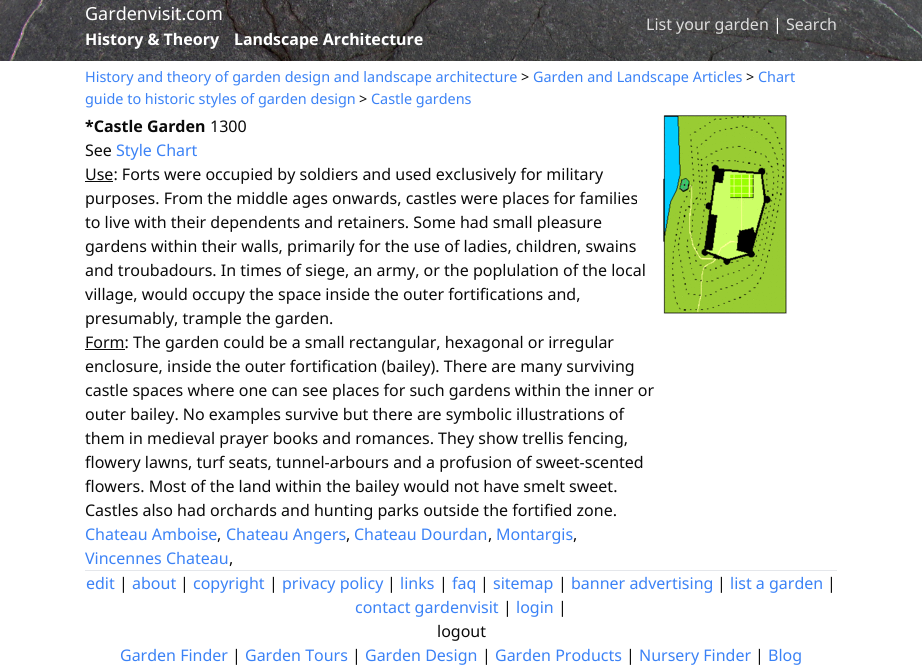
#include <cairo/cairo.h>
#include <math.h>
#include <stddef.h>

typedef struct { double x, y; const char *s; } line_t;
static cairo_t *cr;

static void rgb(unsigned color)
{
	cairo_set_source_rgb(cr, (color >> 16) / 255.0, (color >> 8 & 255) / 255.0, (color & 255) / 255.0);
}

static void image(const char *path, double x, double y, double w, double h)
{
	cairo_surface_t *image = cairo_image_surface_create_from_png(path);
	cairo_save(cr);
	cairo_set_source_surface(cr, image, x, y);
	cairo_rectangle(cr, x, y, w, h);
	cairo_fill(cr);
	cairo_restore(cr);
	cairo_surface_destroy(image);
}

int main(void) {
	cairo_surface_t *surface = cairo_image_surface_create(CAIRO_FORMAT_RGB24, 922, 666);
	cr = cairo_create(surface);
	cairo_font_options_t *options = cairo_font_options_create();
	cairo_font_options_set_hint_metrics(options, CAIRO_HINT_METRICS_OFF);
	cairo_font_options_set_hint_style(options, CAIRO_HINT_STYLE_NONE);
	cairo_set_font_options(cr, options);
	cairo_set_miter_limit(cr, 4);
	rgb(0xffffff);
	cairo_paint(cr);
	image("img/1.png", 0, 0, 922, 61);
	rgb(0x0a0a0a);
	cairo_rectangle(cr, 85, 181, 28, 1);
	cairo_fill(cr);
	cairo_rectangle(cr, 85, 349, 40, 1);
	cairo_fill(cr);
	image("img/2.png", 663, 115, 124, 199);
	rgb(0xe5e7eb);
	cairo_rectangle(cr, 85, 570, 752, 1);
	cairo_fill(cr);
	cairo_select_font_face(cr, "Noto Sans", CAIRO_FONT_SLANT_NORMAL, CAIRO_FONT_WEIGHT_NORMAL);
	cairo_set_font_size(cr, 18);
	rgb(0xffffff);
	cairo_move_to(cr, 85, 20);
	cairo_show_text(cr, "Gardenvisit.com");
	cairo_set_font_size(cr, 16);
	rgb(0xdddddd);
	cairo_move_to(cr, 646, 30);
	cairo_show_text(cr, "List your garden");
	rgb(0xffffff);
	cairo_move_to(cr, 773, 30);
	cairo_show_text(cr, "|");
	rgb(0xdddddd);
	cairo_move_to(cr, 786, 30);
	cairo_show_text(cr, "Search");
	cairo_select_font_face(cr, "Noto Sans", CAIRO_FONT_SLANT_NORMAL, CAIRO_FONT_WEIGHT_BOLD);
	rgb(0xffffff);
	cairo_move_to(cr, 85, 45);
	cairo_show_text(cr, "History & Theory");
	cairo_move_to(cr, 234, 45);
	cairo_show_text(cr, "Landscape Architecture");
	cairo_select_font_face(cr, "Noto Sans", CAIRO_FONT_SLANT_NORMAL, CAIRO_FONT_WEIGHT_NORMAL);
	cairo_set_font_size(cr, 14.4);
	rgb(0x3b82f6);
	cairo_move_to(cr, 85, 82);
	cairo_show_text(cr, "History and theory of garden design and landscape architecture");
	rgb(0x0a0a0a);
	cairo_move_to(cr, 521, 82);
	cairo_show_text(cr, ">");
	rgb(0x3b82f6);
	cairo_move_to(cr, 533, 82);
	cairo_show_text(cr, "Garden and Landscape Articles");
	rgb(0x0a0a0a);
	cairo_move_to(cr, 746, 82);
	cairo_show_text(cr, ">");
	rgb(0x3b82f6);
	cairo_move_to(cr, 758, 82);
	cairo_show_text(cr, "Chart");
	cairo_move_to(cr, 85, 104);
	cairo_show_text(cr, "guide to historic styles of garden design");
	rgb(0x0a0a0a);
	cairo_move_to(cr, 359, 104);
	cairo_show_text(cr, ">");
	rgb(0x3b82f6);
	cairo_move_to(cr, 371, 104);
	cairo_show_text(cr, "Castle gardens");
	cairo_select_font_face(cr, "Noto Sans", CAIRO_FONT_SLANT_NORMAL, CAIRO_FONT_WEIGHT_BOLD);
	cairo_set_font_size(cr, 16);
	rgb(0x0a0a0a);
	cairo_move_to(cr, 85, 132);
	cairo_show_text(cr, "*Castle Garden");
	cairo_select_font_face(cr, "Noto Sans", CAIRO_FONT_SLANT_NORMAL, CAIRO_FONT_WEIGHT_NORMAL);
	cairo_move_to(cr, 210, 132);
	cairo_show_text(cr, "1300");
	cairo_move_to(cr, 85, 156);
	cairo_show_text(cr, "See");
	rgb(0x3b82f6);
	cairo_move_to(cr, 116, 156);
	cairo_show_text(cr, "Style Chart");
	rgb(0x0a0a0a);
	{
		static const line_t items[] = {
			{85, 180, "Use: Forts were occupied by soldiers and used exclusively for military"},
			{85, 204, "purposes. From the middle ages onwards, castles were places for families"},
			{85, 228, "to live with their dependents and retainers. Some had small pleasure"},
			{85, 252, "gardens within their walls, primarily for the use of ladies, children, swains"},
			{85, 276, "and troubadours. In times of siege, an army, or the poplulation of the local"},
			{85, 300, "village, would occupy the space inside the outer fortifications and,"},
			{85, 324, "presumably, trample the garden."},
			{85, 348, "Form: The garden could be a small rectangular, hexagonal or irregular"},
			{85, 372, "enclosure, inside the outer fortification (bailey). There are many surviving"},
			{85, 396, "castle spaces where one can see places for such gardens within the inner or"},
			{85, 420, "outer bailey. No examples survive but there are symbolic illustrations of"},
			{85, 444, "them in medieval prayer books and romances. They show trellis fencing,"},
			{85, 468, "flowery lawns, turf seats, tunnel-arbours and a profusion of sweet-scented"},
			{85, 492, "flowers. Most of the land within the bailey would not have smelt sweet."},
			{85, 516, "Castles also had orchards and hunting parks outside the fortified zone."},
		};
		for (size_t i = 0; i < sizeof items / sizeof *items; i++) {
			cairo_move_to(cr, items[i].x, items[i].y);
			cairo_show_text(cr, items[i].s);
		}
	}
	rgb(0x3b82f6);
	cairo_move_to(cr, 85, 540);
	cairo_show_text(cr, "Chateau Amboise");
	rgb(0x0a0a0a);
	cairo_move_to(cr, 217, 540);
	cairo_show_text(cr, ",");
	rgb(0x3b82f6);
	cairo_move_to(cr, 226, 540);
	cairo_show_text(cr, "Chateau Angers");
	rgb(0x0a0a0a);
	cairo_move_to(cr, 346, 540);
	cairo_show_text(cr, ",");
	rgb(0x3b82f6);
	cairo_move_to(cr, 354, 540);
	cairo_show_text(cr, "Chateau Dourdan");
	rgb(0x0a0a0a);
	cairo_move_to(cr, 488, 540);
	cairo_show_text(cr, ",");
	rgb(0x3b82f6);
	cairo_move_to(cr, 496, 540);
	cairo_show_text(cr, "Montargis");
	rgb(0x0a0a0a);
	cairo_move_to(cr, 573, 540);
	cairo_show_text(cr, ",");
	rgb(0x3b82f6);
	cairo_move_to(cr, 85, 564);
	cairo_show_text(cr, "Vincennes Chateau");
	rgb(0x0a0a0a);
	cairo_move_to(cr, 229, 564);
	cairo_show_text(cr, ",");
	rgb(0x3b82f6);
	cairo_move_to(cr, 86, 589);
	cairo_show_text(cr, "edit");
	rgb(0x0a0a0a);
	cairo_move_to(cr, 119, 589);
	cairo_show_text(cr, "|");
	rgb(0x3b82f6);
	cairo_move_to(cr, 132, 589);
	cairo_show_text(cr, "about");
	rgb(0x0a0a0a);
	cairo_move_to(cr, 180, 589);
	cairo_show_text(cr, "|");
	rgb(0x3b82f6);
	cairo_move_to(cr, 193, 589);
	cairo_show_text(cr, "copyright");
	rgb(0x0a0a0a);
	cairo_move_to(cr, 269, 589);
	cairo_show_text(cr, "|");
	rgb(0x3b82f6);
	cairo_move_to(cr, 282, 589);
	cairo_show_text(cr, "privacy policy");
	rgb(0x0a0a0a);
	cairo_move_to(cr, 387, 589);
	cairo_show_text(cr, "|");
	rgb(0x3b82f6);
	cairo_move_to(cr, 400, 589);
	cairo_show_text(cr, "links");
	rgb(0x0a0a0a);
	cairo_move_to(cr, 439, 589);
	cairo_show_text(cr, "|");
	rgb(0x3b82f6);
	cairo_move_to(cr, 452, 589);
	cairo_show_text(cr, "faq");
	rgb(0x0a0a0a);
	cairo_move_to(cr, 480, 589);
	cairo_show_text(cr, "|");
	rgb(0x3b82f6);
	cairo_move_to(cr, 493, 589);
	cairo_show_text(cr, "sitemap");
	rgb(0x0a0a0a);
	cairo_move_to(cr, 558, 589);
	cairo_show_text(cr, "|");
	rgb(0x3b82f6);
	cairo_move_to(cr, 571, 589);
	cairo_show_text(cr, "banner advertising");
	rgb(0x0a0a0a);
	cairo_move_to(cr, 717, 589);
	cairo_show_text(cr, "|");
	rgb(0x3b82f6);
	cairo_move_to(cr, 730, 589);
	cairo_show_text(cr, "list a garden");
	rgb(0x0a0a0a);
	cairo_move_to(cr, 827, 589);
	cairo_show_text(cr, "|");
	rgb(0x3b82f6);
	cairo_move_to(cr, 355, 613);
	cairo_show_text(cr, "contact gardenvisit");
	rgb(0x0a0a0a);
	cairo_move_to(cr, 503, 613);
	cairo_show_text(cr, "|");
	rgb(0x3b82f6);
	cairo_move_to(cr, 516, 613);
	cairo_show_text(cr, "login");
	rgb(0x0a0a0a);
	cairo_move_to(cr, 558, 613);
	cairo_show_text(cr, "|");
	cairo_move_to(cr, 437, 637);
	cairo_show_text(cr, "logout");
	rgb(0x3b82f6);
	cairo_move_to(cr, 120, 661);
	cairo_show_text(cr, "Garden Finder");
	rgb(0x0a0a0a);
	cairo_move_to(cr, 232, 661);
	cairo_show_text(cr, "|");
	rgb(0x3b82f6);
	cairo_move_to(cr, 245, 661);
	cairo_show_text(cr, "Garden Tours");
	rgb(0x0a0a0a);
	cairo_move_to(cr, 352, 661);
	cairo_show_text(cr, "|");
	rgb(0x3b82f6);
	cairo_move_to(cr, 365, 661);
	cairo_show_text(cr, "Garden Design");
	rgb(0x0a0a0a);
	cairo_move_to(cr, 482, 661);
	cairo_show_text(cr, "|");
	rgb(0x3b82f6);
	cairo_move_to(cr, 495, 661);
	cairo_show_text(cr, "Garden Products");
	rgb(0x0a0a0a);
	cairo_move_to(cr, 626, 661);
	cairo_show_text(cr, "|");
	rgb(0x3b82f6);
	cairo_move_to(cr, 639, 661);
	cairo_show_text(cr, "Nursery Finder");
	rgb(0x0a0a0a);
	cairo_move_to(cr, 755, 661);
	cairo_show_text(cr, "|");
	rgb(0x3b82f6);
	cairo_move_to(cr, 768, 661);
	cairo_show_text(cr, "Blog");
	cairo_surface_write_to_png(surface, "page.png");
	cairo_font_options_destroy(options);
	cairo_destroy(cr);
	cairo_surface_destroy(surface);
	return 0;
}
